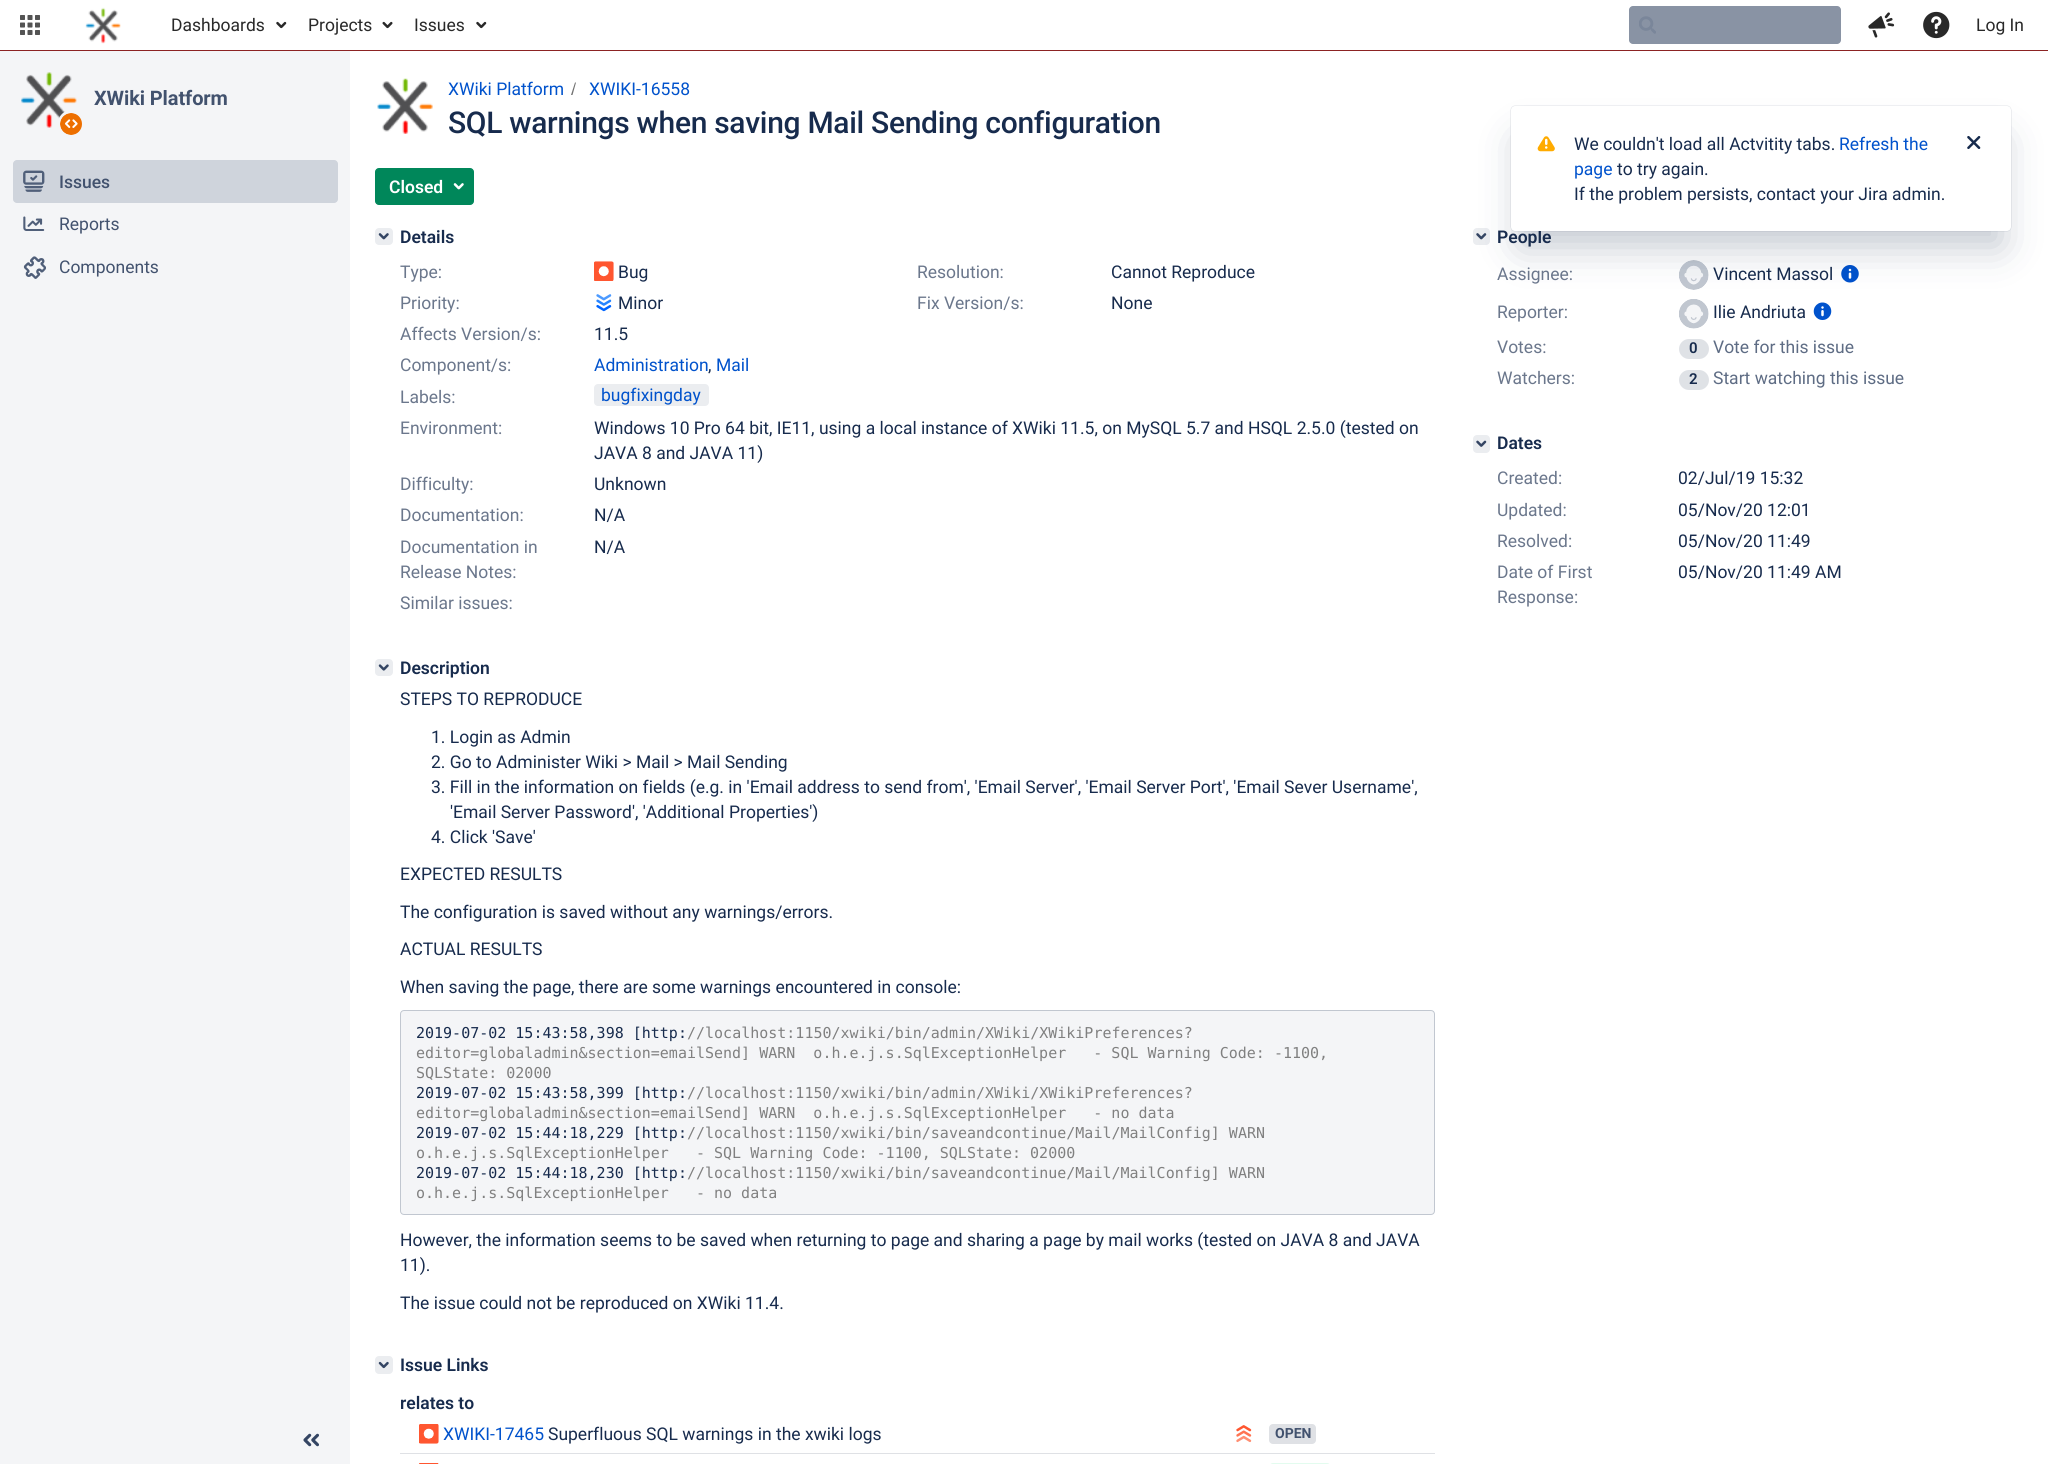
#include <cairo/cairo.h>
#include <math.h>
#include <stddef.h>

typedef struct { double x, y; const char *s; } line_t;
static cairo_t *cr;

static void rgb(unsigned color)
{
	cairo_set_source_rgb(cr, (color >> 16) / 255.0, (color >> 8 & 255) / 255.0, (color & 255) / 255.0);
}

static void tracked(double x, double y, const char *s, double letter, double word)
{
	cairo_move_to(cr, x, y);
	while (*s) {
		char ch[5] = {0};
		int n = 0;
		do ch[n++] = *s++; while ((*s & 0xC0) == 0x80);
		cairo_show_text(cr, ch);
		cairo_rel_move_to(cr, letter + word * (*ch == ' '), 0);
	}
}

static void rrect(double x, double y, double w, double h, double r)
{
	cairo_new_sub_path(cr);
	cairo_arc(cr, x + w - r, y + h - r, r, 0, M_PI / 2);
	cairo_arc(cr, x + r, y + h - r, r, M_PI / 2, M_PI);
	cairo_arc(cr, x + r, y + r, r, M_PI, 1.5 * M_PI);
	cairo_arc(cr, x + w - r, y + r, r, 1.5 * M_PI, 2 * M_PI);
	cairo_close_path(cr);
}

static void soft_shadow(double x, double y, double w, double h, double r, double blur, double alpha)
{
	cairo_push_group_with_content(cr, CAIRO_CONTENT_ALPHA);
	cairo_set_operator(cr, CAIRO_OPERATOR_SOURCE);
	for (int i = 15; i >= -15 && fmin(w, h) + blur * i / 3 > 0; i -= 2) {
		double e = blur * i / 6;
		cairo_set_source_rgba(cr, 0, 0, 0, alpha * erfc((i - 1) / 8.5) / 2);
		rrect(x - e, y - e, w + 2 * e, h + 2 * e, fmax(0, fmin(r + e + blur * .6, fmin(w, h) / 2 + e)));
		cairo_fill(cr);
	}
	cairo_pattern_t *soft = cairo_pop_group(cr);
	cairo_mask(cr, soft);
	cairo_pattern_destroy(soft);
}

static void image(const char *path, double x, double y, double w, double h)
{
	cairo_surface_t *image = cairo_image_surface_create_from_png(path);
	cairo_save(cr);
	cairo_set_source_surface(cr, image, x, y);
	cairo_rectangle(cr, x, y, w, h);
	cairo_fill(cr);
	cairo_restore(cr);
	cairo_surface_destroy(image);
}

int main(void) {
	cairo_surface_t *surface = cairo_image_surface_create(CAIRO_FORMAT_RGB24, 2048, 1464);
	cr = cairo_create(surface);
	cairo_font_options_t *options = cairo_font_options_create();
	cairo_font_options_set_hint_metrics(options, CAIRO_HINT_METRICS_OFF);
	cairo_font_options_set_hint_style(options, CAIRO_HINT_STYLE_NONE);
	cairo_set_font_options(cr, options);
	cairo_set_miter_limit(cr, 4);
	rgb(0xffffff);
	cairo_paint(cr);
	rgb(0x8c2323);
	cairo_rectangle(cr, 0, 50, 2048, 1);
	cairo_fill(cr);
	image("img/1.png", 20, 15, 20, 20);
	image("img/2.png", 85, 7, 36, 37);
	image("img/3.png", 276, 21, 11, 8);
	image("img/4.png", 382, 21, 11, 8);
	image("img/3.png", 476, 21, 11, 8);
	rgb(0x8993a4);
	rrect(1629, 6, 212, 38, 4);
	cairo_fill(cr);
	image("img/5.png", 1639, 16, 17, 18);
	image("img/6.png", 1868, 12, 27, 26);
	image("img/7.png", 1923, 11, 27, 28);
	rgb(0xf4f5f7);
	cairo_rectangle(cr, 0, 51, 350, 1413);
	cairo_fill(cr);
	image("img/8.png", 21, 72, 56, 56);
	rrect(58, 110, 27, 28, 13.5);
	cairo_fill(cr);
	image("img/9.png", 60, 113, 22, 22);
	rgb(0xe1e4e9);
	rrect(13, 160, 325, 43, 4);
	cairo_fill(cr);
	cairo_set_source_rgba(cr, 0.035, 0.118, 0.259, 0.08);
	rrect(13, 160, 325, 43, 4);
	cairo_fill(cr);
	image("img/10.png", 23, 170, 22, 22);
	image("img/11.png", 23, 216, 22, 15);
	image("img/12.png", 23, 256, 23, 23);
	image("img/13.png", 303, 1433, 16, 14);
	image("img/14.png", 377, 78, 56, 56);
	rgb(0x707070);
	cairo_new_path(cr);
	cairo_move_to(cr, 572.5, 95);
	cairo_line_to(cr, 576, 82.5);
	cairo_line_to(cr, 575, 82.5);
	cairo_line_to(cr, 571, 95);
	cairo_close_path(cr);
	cairo_fill(cr);
	rgb(0x00875a);
	rrect(375.5, 168.5, 98, 36, 3.5);
	cairo_fill_preserve(cr);
	cairo_set_line_width(cr, 1);
	cairo_stroke(cr);
	image("img/15.png", 453, 183, 11, 7);
	rgb(0xebedf0);
	rrect(375, 228, 18, 17, 4);
	cairo_fill(cr);
	image("img/16.png", 378, 233, 11, 7);
	image("img/17.png", 594, 261, 20, 20);
	image("img/18.png", 596, 294, 16, 18);
	rrect(594, 384, 115, 22, 4);
	cairo_fill(cr);
	rrect(375, 659, 18, 17, 4);
	cairo_fill(cr);
	image("img/19.png", 378, 664, 11, 7);
	rgb(0xf4f5f7);
	rrect(400.5, 1010.5, 1034, 204, 3.5);
	cairo_fill_preserve(cr);
	rgb(0xc1c7d0);
	cairo_stroke(cr);
	rgb(0xebedf0);
	rrect(375, 1356, 18, 18, 4);
	cairo_fill(cr);
	image("img/20.png", 378, 1361, 11, 8);
	rgb(0xdfe1e5);
	cairo_rectangle(cr, 400, 1453, 1035, 1);
	cairo_fill(cr);
	image("img/21.png", 419, 1424, 20, 20);
	image("img/22.png", 1236, 1425, 16, 18);
	rrect(1269, 1424, 47, 20, 4);
	cairo_fill(cr);
	image("img/23.png", 419, 1463, 20, 1);
	rgb(0xe3fcef);
	cairo_new_path(cr);
	cairo_move_to(cr, 1273, 1463);
	cairo_line_to(cr, 1327, 1463);
	cairo_curve_to(cr, 1329, 1463, 1331, 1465, 1331, 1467);
	cairo_line_to(cr, 1331, 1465);
	cairo_line_to(cr, 1269, 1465);
	cairo_line_to(cr, 1269, 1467);
	cairo_curve_to(cr, 1269, 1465, 1271, 1463, 1273, 1463);
	cairo_close_path(cr);
	cairo_fill(cr);
	rgb(0xebedf0);
	rrect(1473, 228, 17, 17, 4);
	cairo_fill(cr);
	image("img/24.png", 1476, 233, 11, 7);
	image("img/25.png", 1679, 260, 30, 30);
	image("img/26.png", 1841, 265, 18, 18);
	image("img/27.png", 1679, 299, 30, 30);
	image("img/28.png", 1813, 302, 19, 18);
	rgb(0xdfe2e6);
	rrect(1679, 339, 30, 20, 10);
	cairo_fill(cr);
	rrect(1679, 370, 30, 20, 10);
	cairo_fill(cr);
	rgb(0xebedf0);
	rrect(1473, 435, 17, 18, 4);
	cairo_fill(cr);
	image("img/29.png", 1476, 440, 11, 7);
	rgb(0x091e42);
	soft_shadow(1511, 106, 500, 125, 4, 0.5, 0.25);
	soft_shadow(1521, 141, 480, 105, 0, 20, 0.25);
	cairo_select_font_face(cr, "Roboto", CAIRO_FONT_SLANT_NORMAL, CAIRO_FONT_WEIGHT_NORMAL);
	cairo_set_font_size(cr, 17.5);
	rgb(0x292929);
	{
		static const line_t items[] = {
			{171, 31, "Dashboards"},
			{308, 31, "Projects"},
			{414, 31, "Issues"},
			{1976, 31, "Log In"},
		};
		for (size_t i = 0; i < sizeof items / sizeof *items; i++) {
			cairo_move_to(cr, items[i].x, items[i].y);
			cairo_show_text(cr, items[i].s);
		}
	}
	cairo_select_font_face(cr, "Roboto", CAIRO_FONT_SLANT_NORMAL, CAIRO_FONT_WEIGHT_BOLD);
	cairo_set_font_size(cr, 20);
	rgb(0x42526e);
	tracked(94, 105, "XWiki Platform", -0.1, 0);
	cairo_select_font_face(cr, "Roboto Medium", CAIRO_FONT_SLANT_NORMAL, CAIRO_FONT_WEIGHT_NORMAL);
	cairo_set_font_size(cr, 17.5);
	cairo_move_to(cr, 59, 188);
	cairo_show_text(cr, "Issues");
	cairo_select_font_face(cr, "Roboto", CAIRO_FONT_SLANT_NORMAL, CAIRO_FONT_WEIGHT_NORMAL);
	cairo_move_to(cr, 59, 230);
	cairo_show_text(cr, "Reports");
	cairo_move_to(cr, 59, 273);
	cairo_show_text(cr, "Components");
	rgb(0x0052cc);
	cairo_move_to(cr, 448, 95);
	cairo_show_text(cr, "XWiki Platform");
	cairo_move_to(cr, 589, 95);
	cairo_show_text(cr, "XWIKI-16558");
	cairo_select_font_face(cr, "Roboto Medium", CAIRO_FONT_SLANT_NORMAL, CAIRO_FONT_WEIGHT_NORMAL);
	cairo_set_font_size(cr, 30);
	rgb(0x172b4d);
	tracked(448, 133, "SQL warnings when saving Mail Sending configuration", -0.3, 0);
	cairo_select_font_face(cr, "Roboto SemiBold", CAIRO_FONT_SLANT_NORMAL, CAIRO_FONT_WEIGHT_NORMAL);
	cairo_set_font_size(cr, 17.5);
	rgb(0xffffff);
	cairo_move_to(cr, 389, 193);
	cairo_show_text(cr, "Closed");
	rgb(0x172b4d);
	cairo_move_to(cr, 400, 243);
	cairo_show_text(cr, "Details");
	cairo_select_font_face(cr, "Roboto", CAIRO_FONT_SLANT_NORMAL, CAIRO_FONT_WEIGHT_NORMAL);
	rgb(0x6b778c);
	cairo_move_to(cr, 400, 278);
	cairo_show_text(cr, "Type:");
	rgb(0x172b4d);
	cairo_move_to(cr, 618, 278);
	cairo_show_text(cr, "Bug");
	rgb(0x6b778c);
	cairo_move_to(cr, 917, 278);
	cairo_show_text(cr, "Resolution:");
	rgb(0x172b4d);
	cairo_move_to(cr, 1111, 278);
	cairo_show_text(cr, "Cannot Reproduce");
	rgb(0x6b778c);
	cairo_move_to(cr, 400, 309);
	cairo_show_text(cr, "Priority:");
	rgb(0x172b4d);
	cairo_move_to(cr, 618, 309);
	cairo_show_text(cr, "Minor");
	rgb(0x6b778c);
	cairo_move_to(cr, 917, 309);
	cairo_show_text(cr, "Fix Version/s:");
	rgb(0x172b4d);
	cairo_move_to(cr, 1111, 309);
	cairo_show_text(cr, "None");
	rgb(0x6b778c);
	cairo_move_to(cr, 400, 340);
	cairo_show_text(cr, "Affects Version/s:");
	rgb(0x172b4d);
	cairo_move_to(cr, 594, 340);
	cairo_show_text(cr, "11.5");
	rgb(0x6b778c);
	cairo_move_to(cr, 400, 371);
	cairo_show_text(cr, "Component/s:");
	rgb(0x0052cc);
	cairo_move_to(cr, 594, 371);
	cairo_show_text(cr, "Administration");
	rgb(0x172b4d);
	cairo_move_to(cr, 708, 371);
	cairo_show_text(cr, ",");
	rgb(0x0052cc);
	cairo_move_to(cr, 716, 371);
	cairo_show_text(cr, "Mail");
	rgb(0x6b778c);
	cairo_move_to(cr, 400, 403);
	cairo_show_text(cr, "Labels:");
	rgb(0x0052cc);
	cairo_move_to(cr, 601, 401);
	cairo_show_text(cr, "bugfixingday");
	rgb(0x6b778c);
	cairo_move_to(cr, 400, 434);
	cairo_show_text(cr, "Environment:");
	rgb(0x172b4d);
	cairo_move_to(cr, 594, 434);
	cairo_show_text(cr, "Windows 10 Pro 64 bit, IE11, using a local instance of XWiki 11.5, on MySQL 5.7 and HSQL 2.5.0 (tested on");
	cairo_move_to(cr, 594, 459);
	cairo_show_text(cr, "JAVA 8 and JAVA 11)");
	rgb(0x6b778c);
	cairo_move_to(cr, 400, 490);
	cairo_show_text(cr, "Difficulty:");
	rgb(0x172b4d);
	cairo_move_to(cr, 594, 490);
	cairo_show_text(cr, "Unknown");
	rgb(0x6b778c);
	cairo_move_to(cr, 400, 521);
	cairo_show_text(cr, "Documentation:");
	rgb(0x172b4d);
	cairo_move_to(cr, 594, 521);
	cairo_show_text(cr, "N/A");
	rgb(0x6b778c);
	cairo_move_to(cr, 400, 553);
	cairo_show_text(cr, "Documentation in");
	cairo_move_to(cr, 400, 578);
	cairo_show_text(cr, "Release Notes:");
	rgb(0x172b4d);
	cairo_move_to(cr, 594, 553);
	cairo_show_text(cr, "N/A");
	rgb(0x6b778c);
	cairo_move_to(cr, 400, 609);
	cairo_show_text(cr, "Similar issues:");
	cairo_select_font_face(cr, "Roboto SemiBold", CAIRO_FONT_SLANT_NORMAL, CAIRO_FONT_WEIGHT_NORMAL);
	rgb(0x172b4d);
	cairo_move_to(cr, 400, 674);
	cairo_show_text(cr, "Description");
	cairo_select_font_face(cr, "Roboto", CAIRO_FONT_SLANT_NORMAL, CAIRO_FONT_WEIGHT_NORMAL);
	{
		static const line_t items[] = {
			{400, 705, "STEPS TO REPRODUCE"},
			{431, 743, "1. Login as Admin"},
			{431, 768, "2. Go to Administer Wiki > Mail > Mail Sending"},
			{431, 793, "3. Fill in the information on fields (e.g. in 'Email address to send from', 'Email Server', 'Email Server Port', 'Email Sever Username',"},
			{450, 818, "'Email Server Password', 'Additional Properties')"},
			{431, 843, "4. Click 'Save'"},
			{400, 880, "EXPECTED RESULTS"},
			{400, 918, "The configuration is saved without any warnings/errors."},
			{400, 955, "ACTUAL RESULTS"},
			{400, 993, "When saving the page, there are some warnings encountered in console:"},
		};
		for (size_t i = 0; i < sizeof items / sizeof *items; i++) {
			cairo_move_to(cr, items[i].x, items[i].y);
			cairo_show_text(cr, items[i].s);
		}
	}
	cairo_select_font_face(cr, "DejaVu Sans Mono", CAIRO_FONT_SLANT_NORMAL, CAIRO_FONT_WEIGHT_NORMAL);
	cairo_set_font_size(cr, 15);
	cairo_move_to(cr, 416, 1038);
	cairo_show_text(cr, "2019-07-02 15:43:58,398 [http:");
	rgb(0x808080);
	{
		static const line_t items[] = {
			{687, 1038, "//localhost:1150/xwiki/bin/admin/XWiki/XWikiPreferences?"},
			{416, 1058, "editor=globaladmin&section=emailSend] WARN  o.h.e.j.s.SqlExceptionHelper   - SQL Warning Code: -1100,"},
			{416, 1078, "SQLState: 02000"},
		};
		for (size_t i = 0; i < sizeof items / sizeof *items; i++) {
			cairo_move_to(cr, items[i].x, items[i].y);
			cairo_show_text(cr, items[i].s);
		}
	}
	rgb(0x172b4d);
	cairo_move_to(cr, 416, 1098);
	cairo_show_text(cr, "2019-07-02 15:43:58,399 [http:");
	rgb(0x808080);
	cairo_move_to(cr, 687, 1098);
	cairo_show_text(cr, "//localhost:1150/xwiki/bin/admin/XWiki/XWikiPreferences?");
	cairo_move_to(cr, 416, 1118);
	cairo_show_text(cr, "editor=globaladmin&section=emailSend] WARN  o.h.e.j.s.SqlExceptionHelper   - no data");
	rgb(0x172b4d);
	cairo_move_to(cr, 416, 1138);
	cairo_show_text(cr, "2019-07-02 15:44:18,229 [http:");
	rgb(0x808080);
	cairo_move_to(cr, 687, 1138);
	cairo_show_text(cr, "//localhost:1150/xwiki/bin/saveandcontinue/Mail/MailConfig] WARN");
	cairo_move_to(cr, 416, 1158);
	cairo_show_text(cr, "o.h.e.j.s.SqlExceptionHelper   - SQL Warning Code: -1100, SQLState: 02000");
	rgb(0x172b4d);
	cairo_move_to(cr, 416, 1178);
	cairo_show_text(cr, "2019-07-02 15:44:18,230 [http:");
	rgb(0x808080);
	cairo_move_to(cr, 687, 1178);
	cairo_show_text(cr, "//localhost:1150/xwiki/bin/saveandcontinue/Mail/MailConfig] WARN");
	cairo_move_to(cr, 416, 1198);
	cairo_show_text(cr, "o.h.e.j.s.SqlExceptionHelper   - no data");
	cairo_select_font_face(cr, "Roboto", CAIRO_FONT_SLANT_NORMAL, CAIRO_FONT_WEIGHT_NORMAL);
	cairo_set_font_size(cr, 17.5);
	rgb(0x172b4d);
	{
		static const line_t items[] = {
			{400, 1246, "However, the information seems to be saved when returning to page and sharing a page by mail works (tested on JAVA 8 and JAVA"},
			{400, 1271, "11)."},
			{400, 1309, "The issue could not be reproduced on XWiki 11.4."},
		};
		for (size_t i = 0; i < sizeof items / sizeof *items; i++) {
			cairo_move_to(cr, items[i].x, items[i].y);
			cairo_show_text(cr, items[i].s);
		}
	}
	cairo_select_font_face(cr, "Roboto SemiBold", CAIRO_FONT_SLANT_NORMAL, CAIRO_FONT_WEIGHT_NORMAL);
	cairo_move_to(cr, 400, 1371);
	cairo_show_text(cr, "Issue Links");
	cairo_move_to(cr, 400, 1409);
	cairo_show_text(cr, "relates to");
	cairo_select_font_face(cr, "Roboto", CAIRO_FONT_SLANT_NORMAL, CAIRO_FONT_WEIGHT_NORMAL);
	rgb(0x0052cc);
	cairo_move_to(cr, 443, 1440);
	cairo_show_text(cr, "XWIKI-17465");
	rgb(0x172b4d);
	cairo_move_to(cr, 548, 1440);
	cairo_show_text(cr, "Superfluous SQL warnings in the xwiki logs");
	cairo_select_font_face(cr, "Roboto", CAIRO_FONT_SLANT_NORMAL, CAIRO_FONT_WEIGHT_BOLD);
	cairo_set_font_size(cr, 14);
	rgb(0x42526e);
	cairo_move_to(cr, 1275, 1438);
	cairo_show_text(cr, "OPEN");
	cairo_select_font_face(cr, "Roboto SemiBold", CAIRO_FONT_SLANT_NORMAL, CAIRO_FONT_WEIGHT_NORMAL);
	cairo_set_font_size(cr, 17.5);
	rgb(0x172b4d);
	cairo_move_to(cr, 1497, 243);
	cairo_show_text(cr, "People");
	cairo_select_font_face(cr, "Roboto", CAIRO_FONT_SLANT_NORMAL, CAIRO_FONT_WEIGHT_NORMAL);
	rgb(0x6b778c);
	cairo_move_to(cr, 1497, 280);
	cairo_show_text(cr, "Assignee:");
	rgb(0x172b4d);
	cairo_move_to(cr, 1713, 280);
	cairo_show_text(cr, "Vincent Massol");
	rgb(0x6b778c);
	cairo_move_to(cr, 1497, 318);
	cairo_show_text(cr, "Reporter:");
	rgb(0x172b4d);
	cairo_move_to(cr, 1713, 318);
	cairo_show_text(cr, "Ilie Andriuta");
	rgb(0x6b778c);
	cairo_move_to(cr, 1497, 353);
	cairo_show_text(cr, "Votes:");
	cairo_select_font_face(cr, "Roboto SemiBold", CAIRO_FONT_SLANT_NORMAL, CAIRO_FONT_WEIGHT_NORMAL);
	cairo_set_font_size(cr, 15);
	rgb(0x172b4d);
	cairo_move_to(cr, 1689, 353);
	cairo_show_text(cr, "0");
	cairo_select_font_face(cr, "Roboto", CAIRO_FONT_SLANT_NORMAL, CAIRO_FONT_WEIGHT_NORMAL);
	cairo_set_font_size(cr, 17.5);
	rgb(0x5e6c84);
	cairo_move_to(cr, 1713, 353);
	cairo_show_text(cr, "Vote for this issue");
	rgb(0x6b778c);
	cairo_move_to(cr, 1497, 384);
	cairo_show_text(cr, "Watchers:");
	cairo_select_font_face(cr, "Roboto SemiBold", CAIRO_FONT_SLANT_NORMAL, CAIRO_FONT_WEIGHT_NORMAL);
	cairo_set_font_size(cr, 15);
	rgb(0x172b4d);
	cairo_move_to(cr, 1689, 384);
	cairo_show_text(cr, "2");
	cairo_select_font_face(cr, "Roboto", CAIRO_FONT_SLANT_NORMAL, CAIRO_FONT_WEIGHT_NORMAL);
	cairo_set_font_size(cr, 17.5);
	rgb(0x5e6c84);
	cairo_move_to(cr, 1713, 384);
	cairo_show_text(cr, "Start watching this issue");
	cairo_select_font_face(cr, "Roboto SemiBold", CAIRO_FONT_SLANT_NORMAL, CAIRO_FONT_WEIGHT_NORMAL);
	rgb(0x172b4d);
	cairo_move_to(cr, 1497, 449);
	cairo_show_text(cr, "Dates");
	cairo_select_font_face(cr, "Roboto", CAIRO_FONT_SLANT_NORMAL, CAIRO_FONT_WEIGHT_NORMAL);
	rgb(0x6b778c);
	cairo_move_to(cr, 1497, 484);
	cairo_show_text(cr, "Created:");
	rgb(0x172b4d);
	cairo_move_to(cr, 1678, 484);
	cairo_show_text(cr, "02/Jul/19 15:32");
	rgb(0x6b778c);
	cairo_move_to(cr, 1497, 516);
	cairo_show_text(cr, "Updated:");
	rgb(0x172b4d);
	cairo_move_to(cr, 1678, 516);
	cairo_show_text(cr, "05/Nov/20 12:01");
	rgb(0x6b778c);
	cairo_move_to(cr, 1497, 547);
	cairo_show_text(cr, "Resolved:");
	rgb(0x172b4d);
	cairo_move_to(cr, 1678, 547);
	cairo_show_text(cr, "05/Nov/20 11:49");
	rgb(0x6b778c);
	cairo_move_to(cr, 1497, 578);
	cairo_show_text(cr, "Date of First");
	cairo_move_to(cr, 1497, 603);
	cairo_show_text(cr, "Response:");
	rgb(0x172b4d);
	cairo_move_to(cr, 1678, 578);
	cairo_show_text(cr, "05/Nov/20 11:49 AM");
	rgb(0xffffff);
	rrect(1511, 106, 500, 125, 4);
	cairo_fill(cr);
	image("img/30.png", 1537, 136, 18, 16);
	rgb(0x172b4d);
	cairo_move_to(cr, 1574, 150);
	cairo_show_text(cr, "We couldn't load all Actvitity tabs.");
	rgb(0x0052cc);
	cairo_move_to(cr, 1839, 150);
	cairo_show_text(cr, "Refresh the");
	image("img/31.png", 1967, 136, 14, 13);
	cairo_move_to(cr, 1574, 175);
	cairo_show_text(cr, "page");
	rgb(0x172b4d);
	cairo_move_to(cr, 1617, 175);
	cairo_show_text(cr, "to try again.");
	cairo_move_to(cr, 1574, 200);
	cairo_show_text(cr, "If the problem persists, contact your Jira admin.");
	cairo_surface_write_to_png(surface, "page.png");
	cairo_font_options_destroy(options);
	cairo_destroy(cr);
	cairo_surface_destroy(surface);
	return 0;
}
